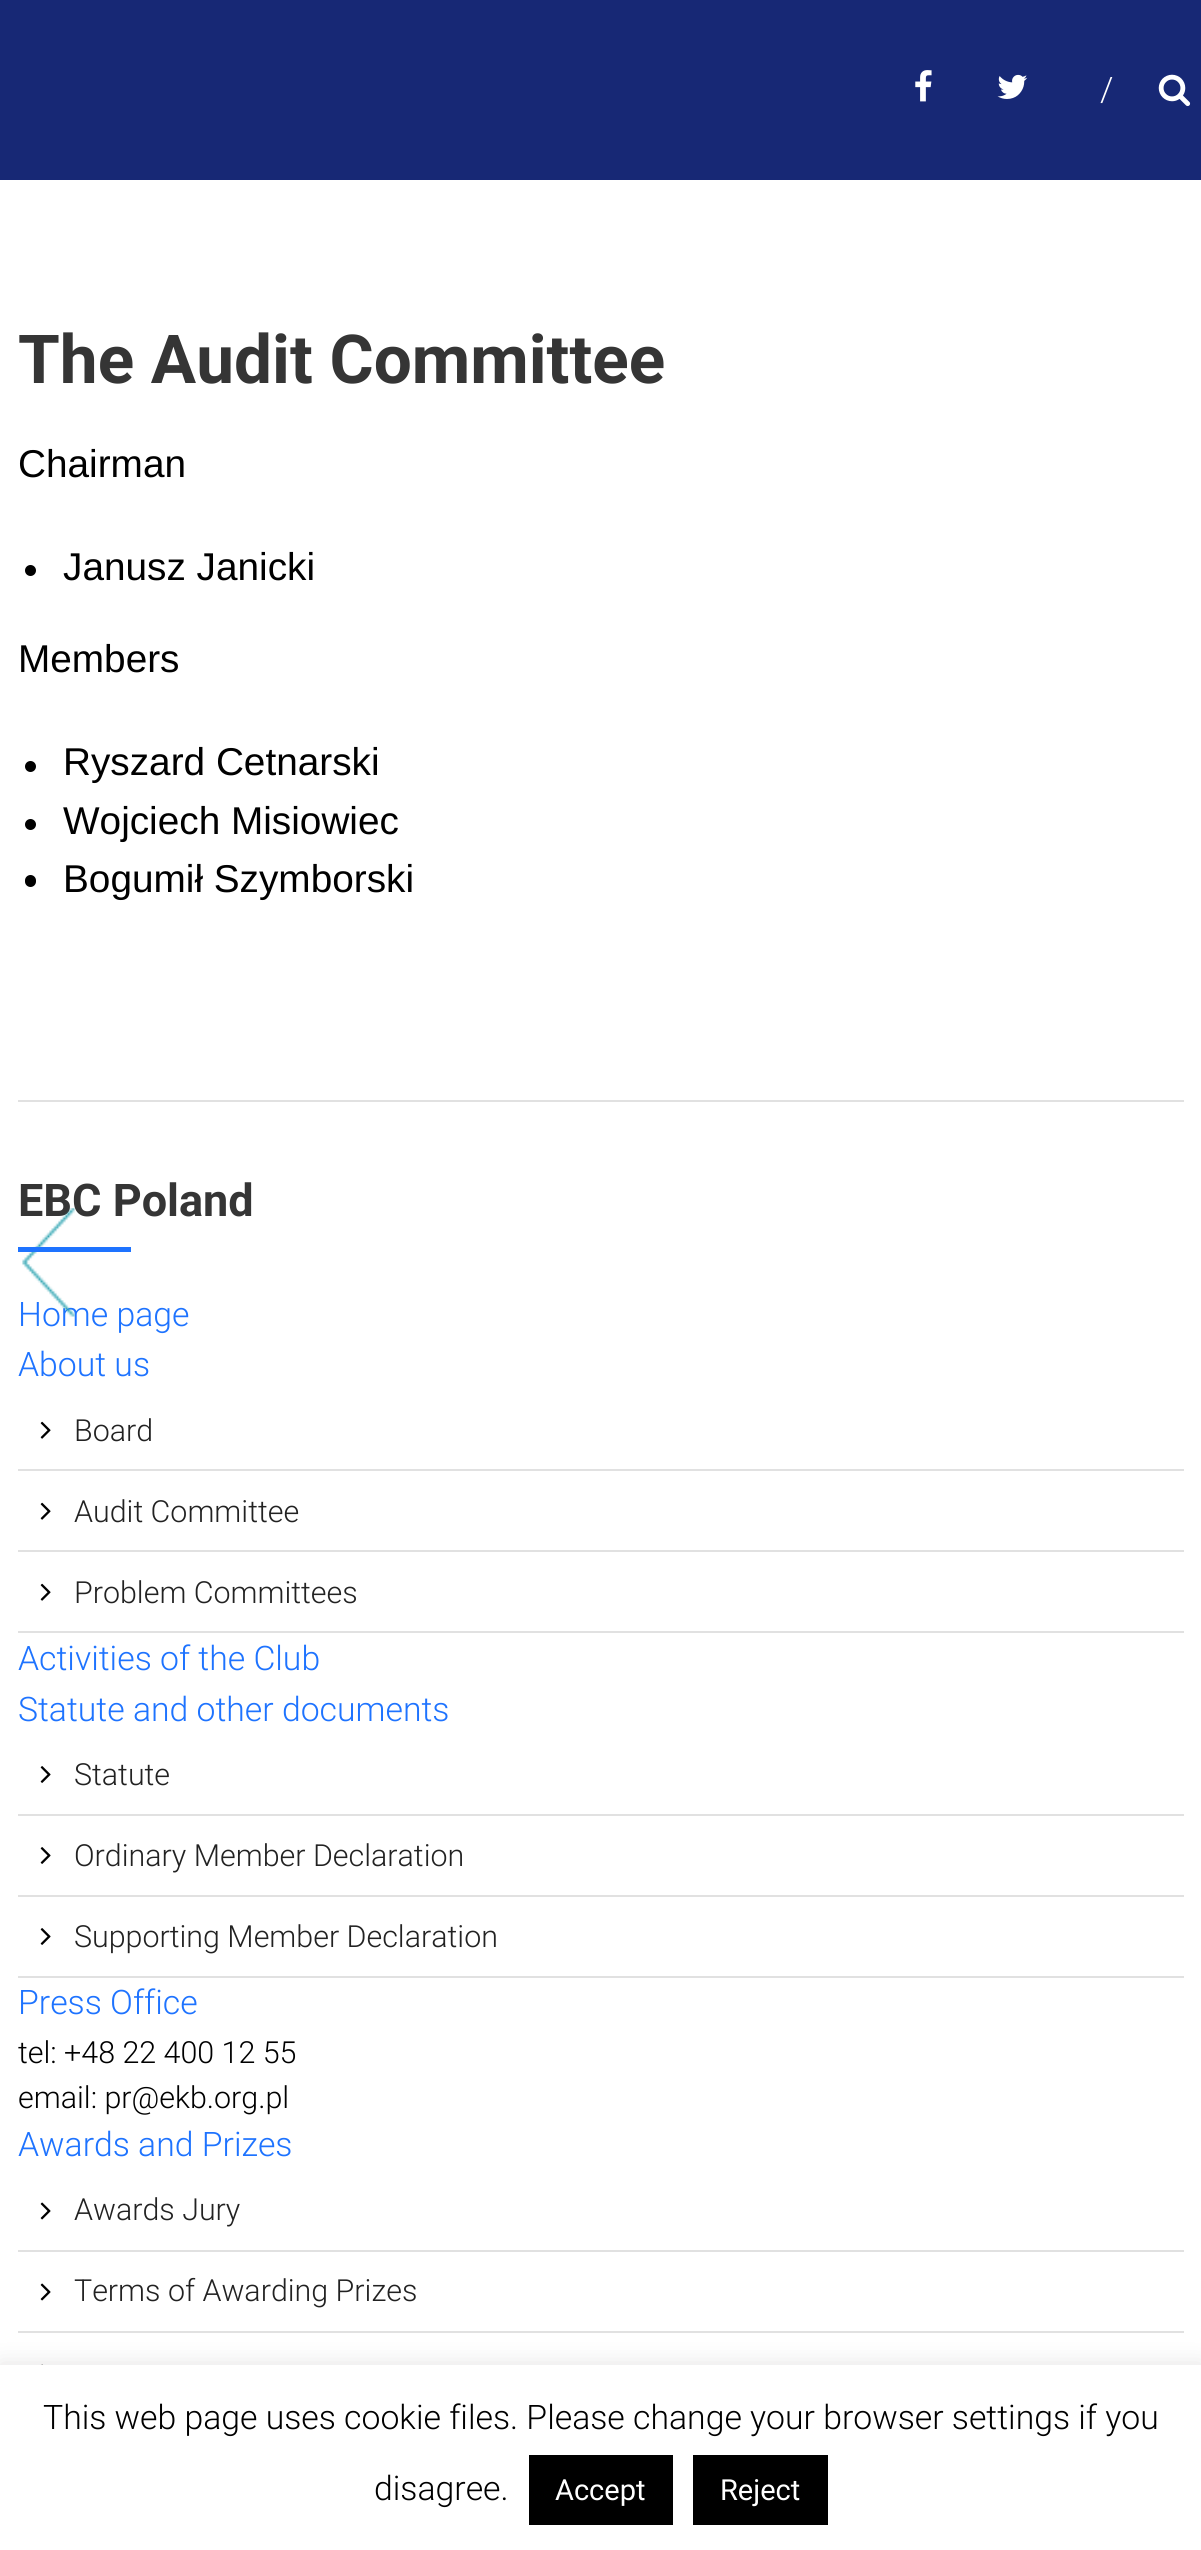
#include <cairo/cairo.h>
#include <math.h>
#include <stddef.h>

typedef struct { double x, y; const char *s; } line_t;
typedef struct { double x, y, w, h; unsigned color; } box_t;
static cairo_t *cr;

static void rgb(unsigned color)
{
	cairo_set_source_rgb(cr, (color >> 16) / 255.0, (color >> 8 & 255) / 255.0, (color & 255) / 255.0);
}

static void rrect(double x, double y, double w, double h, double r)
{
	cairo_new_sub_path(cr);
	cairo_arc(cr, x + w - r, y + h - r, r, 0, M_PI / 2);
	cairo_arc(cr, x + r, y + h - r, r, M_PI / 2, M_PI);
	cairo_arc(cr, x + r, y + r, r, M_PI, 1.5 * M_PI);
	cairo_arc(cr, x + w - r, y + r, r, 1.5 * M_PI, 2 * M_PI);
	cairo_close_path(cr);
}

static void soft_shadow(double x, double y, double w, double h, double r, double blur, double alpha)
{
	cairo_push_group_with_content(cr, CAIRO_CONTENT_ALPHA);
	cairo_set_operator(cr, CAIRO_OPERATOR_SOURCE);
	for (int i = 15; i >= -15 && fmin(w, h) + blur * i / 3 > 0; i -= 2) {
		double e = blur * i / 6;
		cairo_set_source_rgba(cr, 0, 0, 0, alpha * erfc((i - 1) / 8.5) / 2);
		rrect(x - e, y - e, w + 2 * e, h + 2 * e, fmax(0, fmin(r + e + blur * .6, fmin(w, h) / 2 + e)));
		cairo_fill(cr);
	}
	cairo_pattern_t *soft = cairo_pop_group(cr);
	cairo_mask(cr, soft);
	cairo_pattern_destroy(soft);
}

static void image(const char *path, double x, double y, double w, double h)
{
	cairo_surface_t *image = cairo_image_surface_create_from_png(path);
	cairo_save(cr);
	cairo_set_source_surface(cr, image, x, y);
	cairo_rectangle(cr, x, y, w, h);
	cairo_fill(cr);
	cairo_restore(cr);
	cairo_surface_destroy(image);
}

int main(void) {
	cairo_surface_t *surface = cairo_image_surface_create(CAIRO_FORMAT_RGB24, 1201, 2550);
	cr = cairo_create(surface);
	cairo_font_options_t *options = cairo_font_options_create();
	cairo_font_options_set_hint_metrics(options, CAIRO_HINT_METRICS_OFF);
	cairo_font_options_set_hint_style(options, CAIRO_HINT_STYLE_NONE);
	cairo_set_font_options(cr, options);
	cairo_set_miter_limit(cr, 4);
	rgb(0xffffff);
	cairo_paint(cr);
	rgb(0x172875);
	cairo_rectangle(cr, 0, 0, 1201, 180);
	cairo_fill(cr);
	image("img/1.png", 915, 70, 17, 32);
	image("img/2.png", 997, 74, 31, 25);
	image("img/3.png", 1158, 74, 33, 33);
	rgb(0xe1e1e1);
	cairo_rectangle(cr, 18, 1100, 1166, 2);
	cairo_fill(cr);
	rgb(0x000000);
	cairo_arc(cr, 30.5, 570.5, 5.5, 0, 2 * M_PI);
	cairo_fill(cr);
	cairo_arc(cr, 30.5, 766.5, 5.5, 0, 2 * M_PI);
	cairo_fill(cr);
	cairo_arc(cr, 30.5, 824.5, 5.5, 0, 2 * M_PI);
	cairo_fill(cr);
	rrect(25, 875, 11, 12, 5.5);
	cairo_fill(cr);
	rgb(0xe1e1e1);
	cairo_rectangle(cr, 18, 1469, 1166, 2);
	cairo_fill(cr);
	image("img/5.png", 40, 1421, 11, 18);
	cairo_rectangle(cr, 18, 1550, 1166, 2);
	cairo_fill(cr);
	image("img/5.png", 40, 1502, 11, 18);
	cairo_rectangle(cr, 18, 1631, 1166, 2);
	cairo_fill(cr);
	image("img/5.png", 40, 1583, 11, 18);
	cairo_rectangle(cr, 18, 1814, 1166, 2);
	cairo_fill(cr);
	image("img/6.png", 40, 1766, 11, 17);
	cairo_rectangle(cr, 18, 1895, 1166, 2);
	cairo_fill(cr);
	image("img/6.png", 40, 1847, 11, 17);
	cairo_rectangle(cr, 18, 1976, 1166, 2);
	cairo_fill(cr);
	image("img/6.png", 40, 1928, 11, 17);
	cairo_rectangle(cr, 18, 2250, 1166, 2);
	cairo_fill(cr);
	image("img/7.png", 40, 2202, 11, 18);
	cairo_rectangle(cr, 18, 2331, 1166, 2);
	cairo_fill(cr);
	image("img/7.png", 40, 2283, 11, 18);
	image("img/8.png", 41, 2364, 2, 1);
	rgb(0xacabab);
	soft_shadow(0, 2363, 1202, 186, 0, 11, 0.3);
	{
		static const box_t items[] = {
			{0, 2365, 1201, 185, 0xffffff},
			{529, 2455, 144, 70, 0x000000},
			{693, 2455, 135, 70, 0x000000},
		};
		for (size_t i = 0; i < sizeof items / sizeof *items; i++) {
			rgb(items[i].color);
			cairo_rectangle(cr, items[i].x, items[i].y, items[i].w, items[i].h);
			cairo_fill(cr);
		}
	}
	cairo_select_font_face(cr, "Roboto Light", CAIRO_FONT_SLANT_NORMAL, CAIRO_FONT_WEIGHT_NORMAL);
	cairo_set_font_size(cr, 33.75);
	rgb(0xffffff);
	cairo_move_to(cr, 1100, 101);
	cairo_show_text(cr, "/");
	cairo_select_font_face(cr, "Roboto", CAIRO_FONT_SLANT_NORMAL, CAIRO_FONT_WEIGHT_BOLD);
	cairo_set_font_size(cr, 67.5);
	rgb(0x353535);
	cairo_move_to(cr, 18, 383);
	cairo_show_text(cr, "The Audit Committee");
	cairo_select_font_face(cr, "Liberation Sans", CAIRO_FONT_SLANT_NORMAL, CAIRO_FONT_WEIGHT_NORMAL);
	cairo_set_font_size(cr, 38.75);
	rgb(0x000000);
	{
		static const line_t items[] = {
			{18, 477, "Chairman"},
			{63, 580, "Janusz Janicki"},
			{18, 672, "Members"},
			{63, 775, "Ryszard Cetnarski"},
			{63, 834, "Wojciech Misiowiec"},
			{63, 892, "Bogumił Szymborski"},
		};
		for (size_t i = 0; i < sizeof items / sizeof *items; i++) {
			cairo_move_to(cr, items[i].x, items[i].y);
			cairo_show_text(cr, items[i].s);
		}
	}
	cairo_select_font_face(cr, "Roboto", CAIRO_FONT_SLANT_NORMAL, CAIRO_FONT_WEIGHT_BOLD);
	cairo_set_font_size(cr, 45);
	rgb(0x353535);
	cairo_move_to(cr, 18, 1216);
	cairo_show_text(cr, "EBC Poland");
	cairo_select_font_face(cr, "Roboto Light", CAIRO_FONT_SLANT_NORMAL, CAIRO_FONT_WEIGHT_NORMAL);
	cairo_set_font_size(cr, 33.75);
	rgb(0x1e73ff);
	cairo_move_to(cr, 18, 1326);
	cairo_show_text(cr, "Home page");
	image("img/4.png", 22, 1208, 53, 109);
	cairo_rectangle(cr, 18, 1247, 113, 5);
	cairo_fill(cr);
	cairo_move_to(cr, 18, 1376);
	cairo_show_text(cr, "About us");
	cairo_set_font_size(cr, 30.4);
	rgb(0x222222);
	{
		static const line_t items[] = {
			{74, 1441, "Board"},
			{74, 1522, "Audit Committee"},
			{74, 1603, "Problem Committees"},
		};
		for (size_t i = 0; i < sizeof items / sizeof *items; i++) {
			cairo_move_to(cr, items[i].x, items[i].y);
			cairo_show_text(cr, items[i].s);
		}
	}
	cairo_set_font_size(cr, 33.75);
	rgb(0x1e73ff);
	cairo_move_to(cr, 18, 1670);
	cairo_show_text(cr, "Activities of the Club");
	cairo_move_to(cr, 18, 1721);
	cairo_show_text(cr, "Statute and other documents");
	cairo_set_font_size(cr, 30.4);
	rgb(0x222222);
	{
		static const line_t items[] = {
			{74, 1785, "Statute"},
			{74, 1866, "Ordinary Member Declaration"},
			{74, 1947, "Supporting Member Declaration"},
		};
		for (size_t i = 0; i < sizeof items / sizeof *items; i++) {
			cairo_move_to(cr, items[i].x, items[i].y);
			cairo_show_text(cr, items[i].s);
		}
	}
	cairo_set_font_size(cr, 33.75);
	rgb(0x1e73ff);
	cairo_move_to(cr, 18, 2014);
	cairo_show_text(cr, "Press Office");
	cairo_set_font_size(cr, 30.4);
	rgb(0x000000);
	cairo_move_to(cr, 18, 2063);
	cairo_show_text(cr, "tel: +48 22 400 12 55");
	cairo_move_to(cr, 18, 2108);
	cairo_show_text(cr, "email: pr@ekb.org.pl");
	cairo_set_font_size(cr, 33.75);
	rgb(0x1e73ff);
	cairo_move_to(cr, 18, 2156);
	cairo_show_text(cr, "Awards and Prizes");
	cairo_set_font_size(cr, 30.4);
	rgb(0x222222);
	cairo_move_to(cr, 74, 2220);
	cairo_show_text(cr, "Awards Jury");
	cairo_move_to(cr, 74, 2301);
	cairo_show_text(cr, "Terms of Awarding Prizes");
	cairo_set_font_size(cr, 33.75);
	rgb(0x000000);
	cairo_move_to(cr, 43, 2429);
	cairo_show_text(cr, "This web page uses cookie files. Please change your browser settings if you");
	cairo_move_to(cr, 374, 2500);
	cairo_show_text(cr, "disagree.");
	cairo_select_font_face(cr, "Roboto", CAIRO_FONT_SLANT_NORMAL, CAIRO_FONT_WEIGHT_NORMAL);
	cairo_set_font_size(cr, 29);
	rgb(0xffffff);
	cairo_move_to(cr, 555, 2500);
	cairo_show_text(cr, "Accept");
	cairo_move_to(cr, 720, 2500);
	cairo_show_text(cr, "Reject");
	cairo_surface_write_to_png(surface, "page.png");
	cairo_font_options_destroy(options);
	cairo_destroy(cr);
	cairo_surface_destroy(surface);
	return 0;
}
